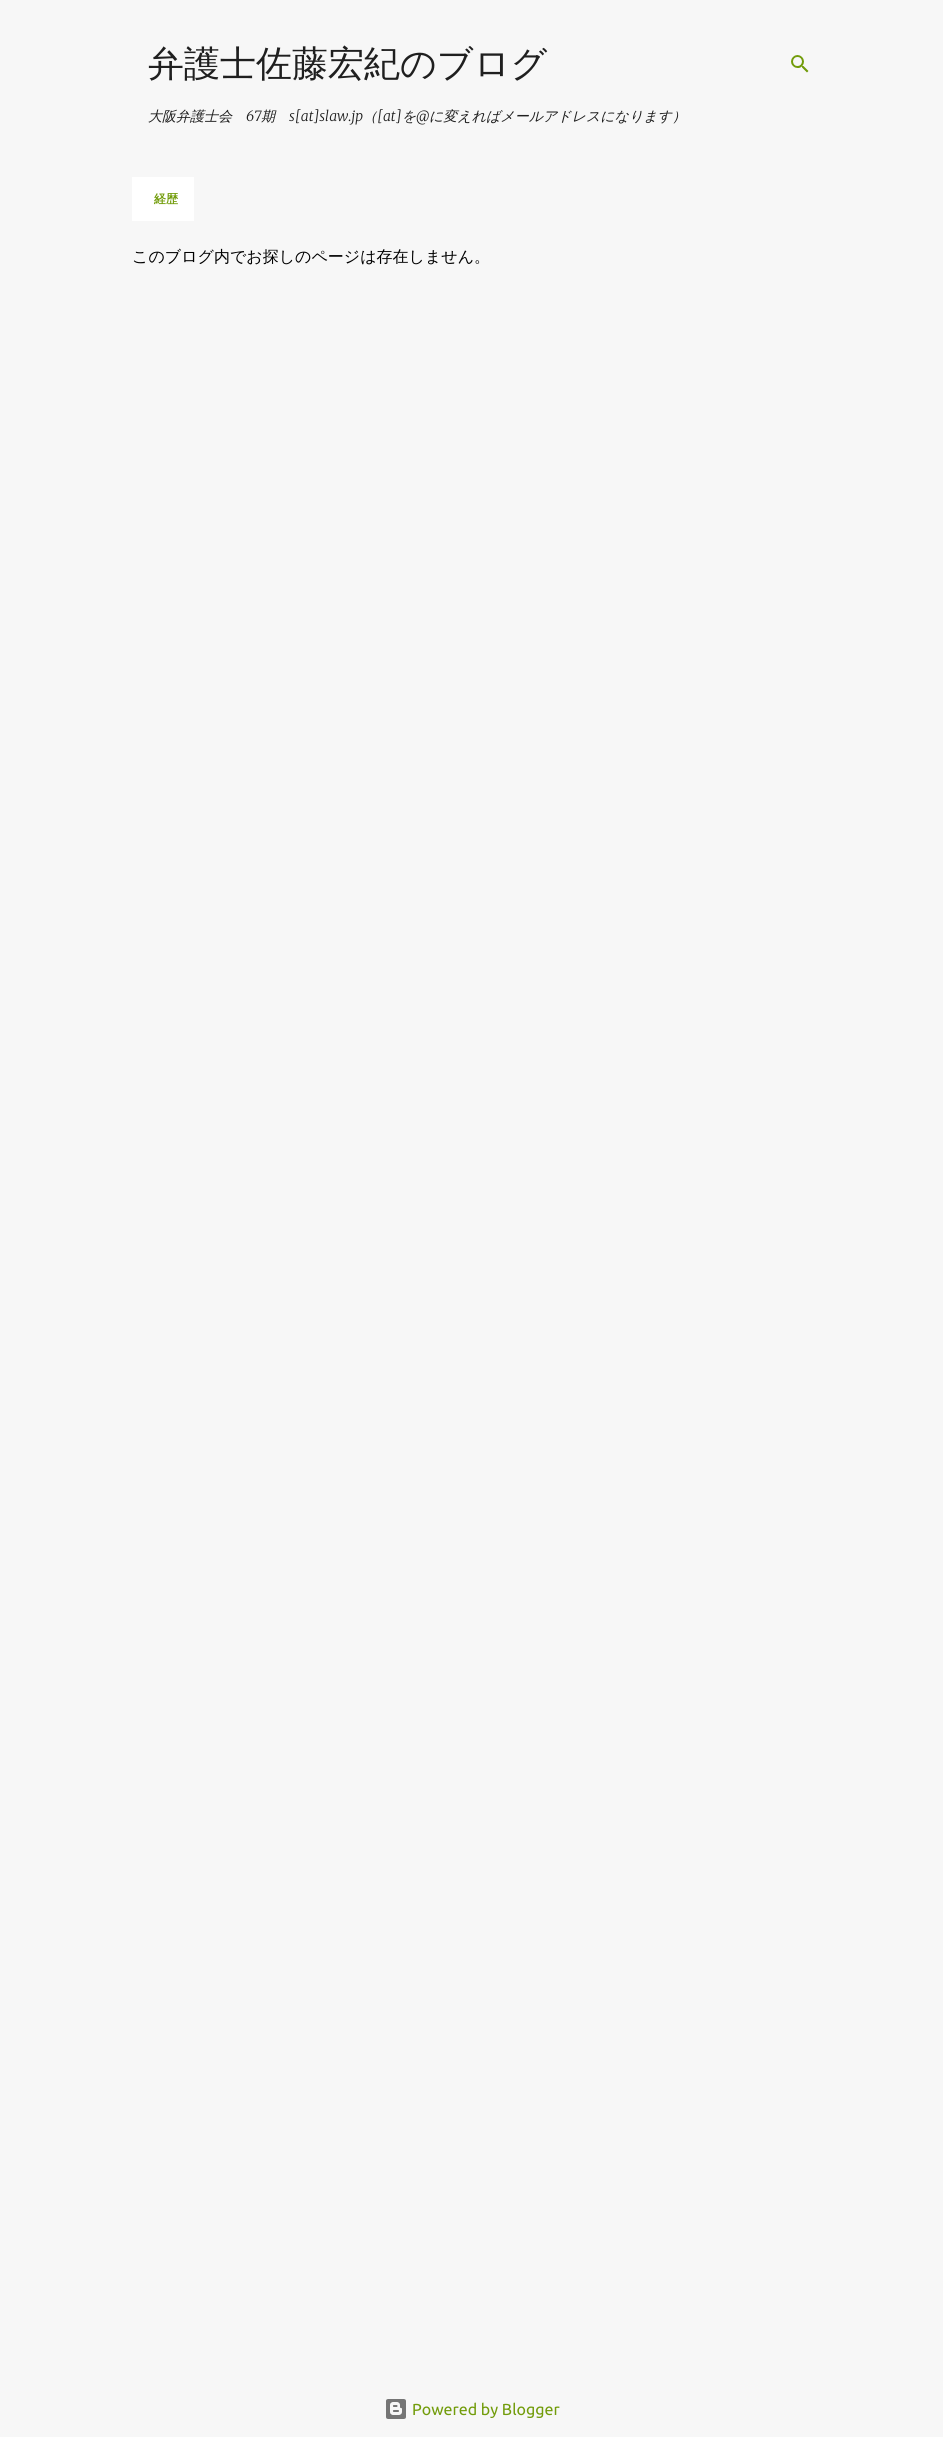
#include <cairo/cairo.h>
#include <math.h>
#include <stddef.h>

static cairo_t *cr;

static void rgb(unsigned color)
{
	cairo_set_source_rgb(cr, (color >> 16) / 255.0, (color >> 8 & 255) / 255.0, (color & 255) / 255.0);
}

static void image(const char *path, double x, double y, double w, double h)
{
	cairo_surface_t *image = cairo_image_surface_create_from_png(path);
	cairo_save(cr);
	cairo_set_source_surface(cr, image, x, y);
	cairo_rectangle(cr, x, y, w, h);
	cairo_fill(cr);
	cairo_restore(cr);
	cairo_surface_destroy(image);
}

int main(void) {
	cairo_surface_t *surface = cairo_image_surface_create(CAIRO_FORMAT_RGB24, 943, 2437);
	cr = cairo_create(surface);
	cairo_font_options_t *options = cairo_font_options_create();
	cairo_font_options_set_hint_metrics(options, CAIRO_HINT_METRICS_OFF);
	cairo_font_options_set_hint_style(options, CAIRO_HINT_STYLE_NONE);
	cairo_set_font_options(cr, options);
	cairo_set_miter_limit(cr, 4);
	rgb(0xf7f7f7);
	cairo_paint(cr);
	image("img/1.png", 791, 55, 18, 18);
	rgb(0xffffff);
	cairo_rectangle(cr, 132, 177, 62, 44);
	cairo_fill(cr);
	image("img/2.png", 386, 2399, 20, 20);
	cairo_select_font_face(cr, "WenQuanYi Zen Hei Medium", CAIRO_FONT_SLANT_NORMAL, CAIRO_FONT_WEIGHT_NORMAL);
	cairo_set_font_size(cr, 36);
	rgb(0x1f1f1f);
	cairo_move_to(cr, 148, 76);
	cairo_show_text(cr, "弁護士佐藤宏紀のブログ");
	cairo_select_font_face(cr, "WenQuanYi Zen Hei Medium", CAIRO_FONT_SLANT_ITALIC, CAIRO_FONT_WEIGHT_NORMAL);
	cairo_set_font_size(cr, 14);
	cairo_move_to(cr, 148, 121);
	cairo_show_text(cr, "大阪弁護士会");
	cairo_select_font_face(cr, "Merriweather Light", CAIRO_FONT_SLANT_ITALIC, CAIRO_FONT_WEIGHT_NORMAL);
	cairo_move_to(cr, 246, 121);
	cairo_show_text(cr, "67");
	cairo_select_font_face(cr, "WenQuanYi Zen Hei Medium", CAIRO_FONT_SLANT_ITALIC, CAIRO_FONT_WEIGHT_NORMAL);
	cairo_move_to(cr, 261, 121);
	cairo_show_text(cr, "期");
	cairo_select_font_face(cr, "Merriweather Light", CAIRO_FONT_SLANT_ITALIC, CAIRO_FONT_WEIGHT_NORMAL);
	cairo_move_to(cr, 289, 121);
	cairo_show_text(cr, "s[at]slaw.jp");
	cairo_select_font_face(cr, "WenQuanYi Zen Hei Medium", CAIRO_FONT_SLANT_ITALIC, CAIRO_FONT_WEIGHT_NORMAL);
	cairo_move_to(cr, 363, 121);
	cairo_show_text(cr, "（");
	cairo_select_font_face(cr, "Merriweather Light", CAIRO_FONT_SLANT_ITALIC, CAIRO_FONT_WEIGHT_NORMAL);
	cairo_move_to(cr, 377, 121);
	cairo_show_text(cr, "[at]");
	cairo_select_font_face(cr, "WenQuanYi Zen Hei Medium", CAIRO_FONT_SLANT_ITALIC, CAIRO_FONT_WEIGHT_NORMAL);
	cairo_move_to(cr, 402, 121);
	cairo_show_text(cr, "を");
	cairo_select_font_face(cr, "Merriweather Light", CAIRO_FONT_SLANT_ITALIC, CAIRO_FONT_WEIGHT_NORMAL);
	cairo_move_to(cr, 416, 121);
	cairo_show_text(cr, "@");
	cairo_select_font_face(cr, "WenQuanYi Zen Hei Medium", CAIRO_FONT_SLANT_ITALIC, CAIRO_FONT_WEIGHT_NORMAL);
	cairo_move_to(cr, 429, 121);
	cairo_show_text(cr, "に変えればメールアドレスになります）");
	cairo_select_font_face(cr, "WenQuanYi Zen Hei", CAIRO_FONT_SLANT_NORMAL, CAIRO_FONT_WEIGHT_BOLD);
	cairo_set_font_size(cr, 12);
	rgb(0x729c0b);
	cairo_move_to(cr, 154, 203);
	cairo_show_text(cr, "経歴");
	cairo_select_font_face(cr, "WenQuanYi Zen Hei Medium", CAIRO_FONT_SLANT_NORMAL, CAIRO_FONT_WEIGHT_NORMAL);
	cairo_set_font_size(cr, 16);
	rgb(0x000000);
	cairo_move_to(cr, 132, 262);
	cairo_show_text(cr, "このブログ内でお探しのページは存在しません。");
	cairo_select_font_face(cr, "Ubuntu", CAIRO_FONT_SLANT_NORMAL, CAIRO_FONT_WEIGHT_NORMAL);
	rgb(0x729c0b);
	cairo_move_to(cr, 412, 2415);
	cairo_show_text(cr, "Powered by Blogger");
	cairo_surface_write_to_png(surface, "page.png");
	cairo_font_options_destroy(options);
	cairo_destroy(cr);
	cairo_surface_destroy(surface);
	return 0;
}
